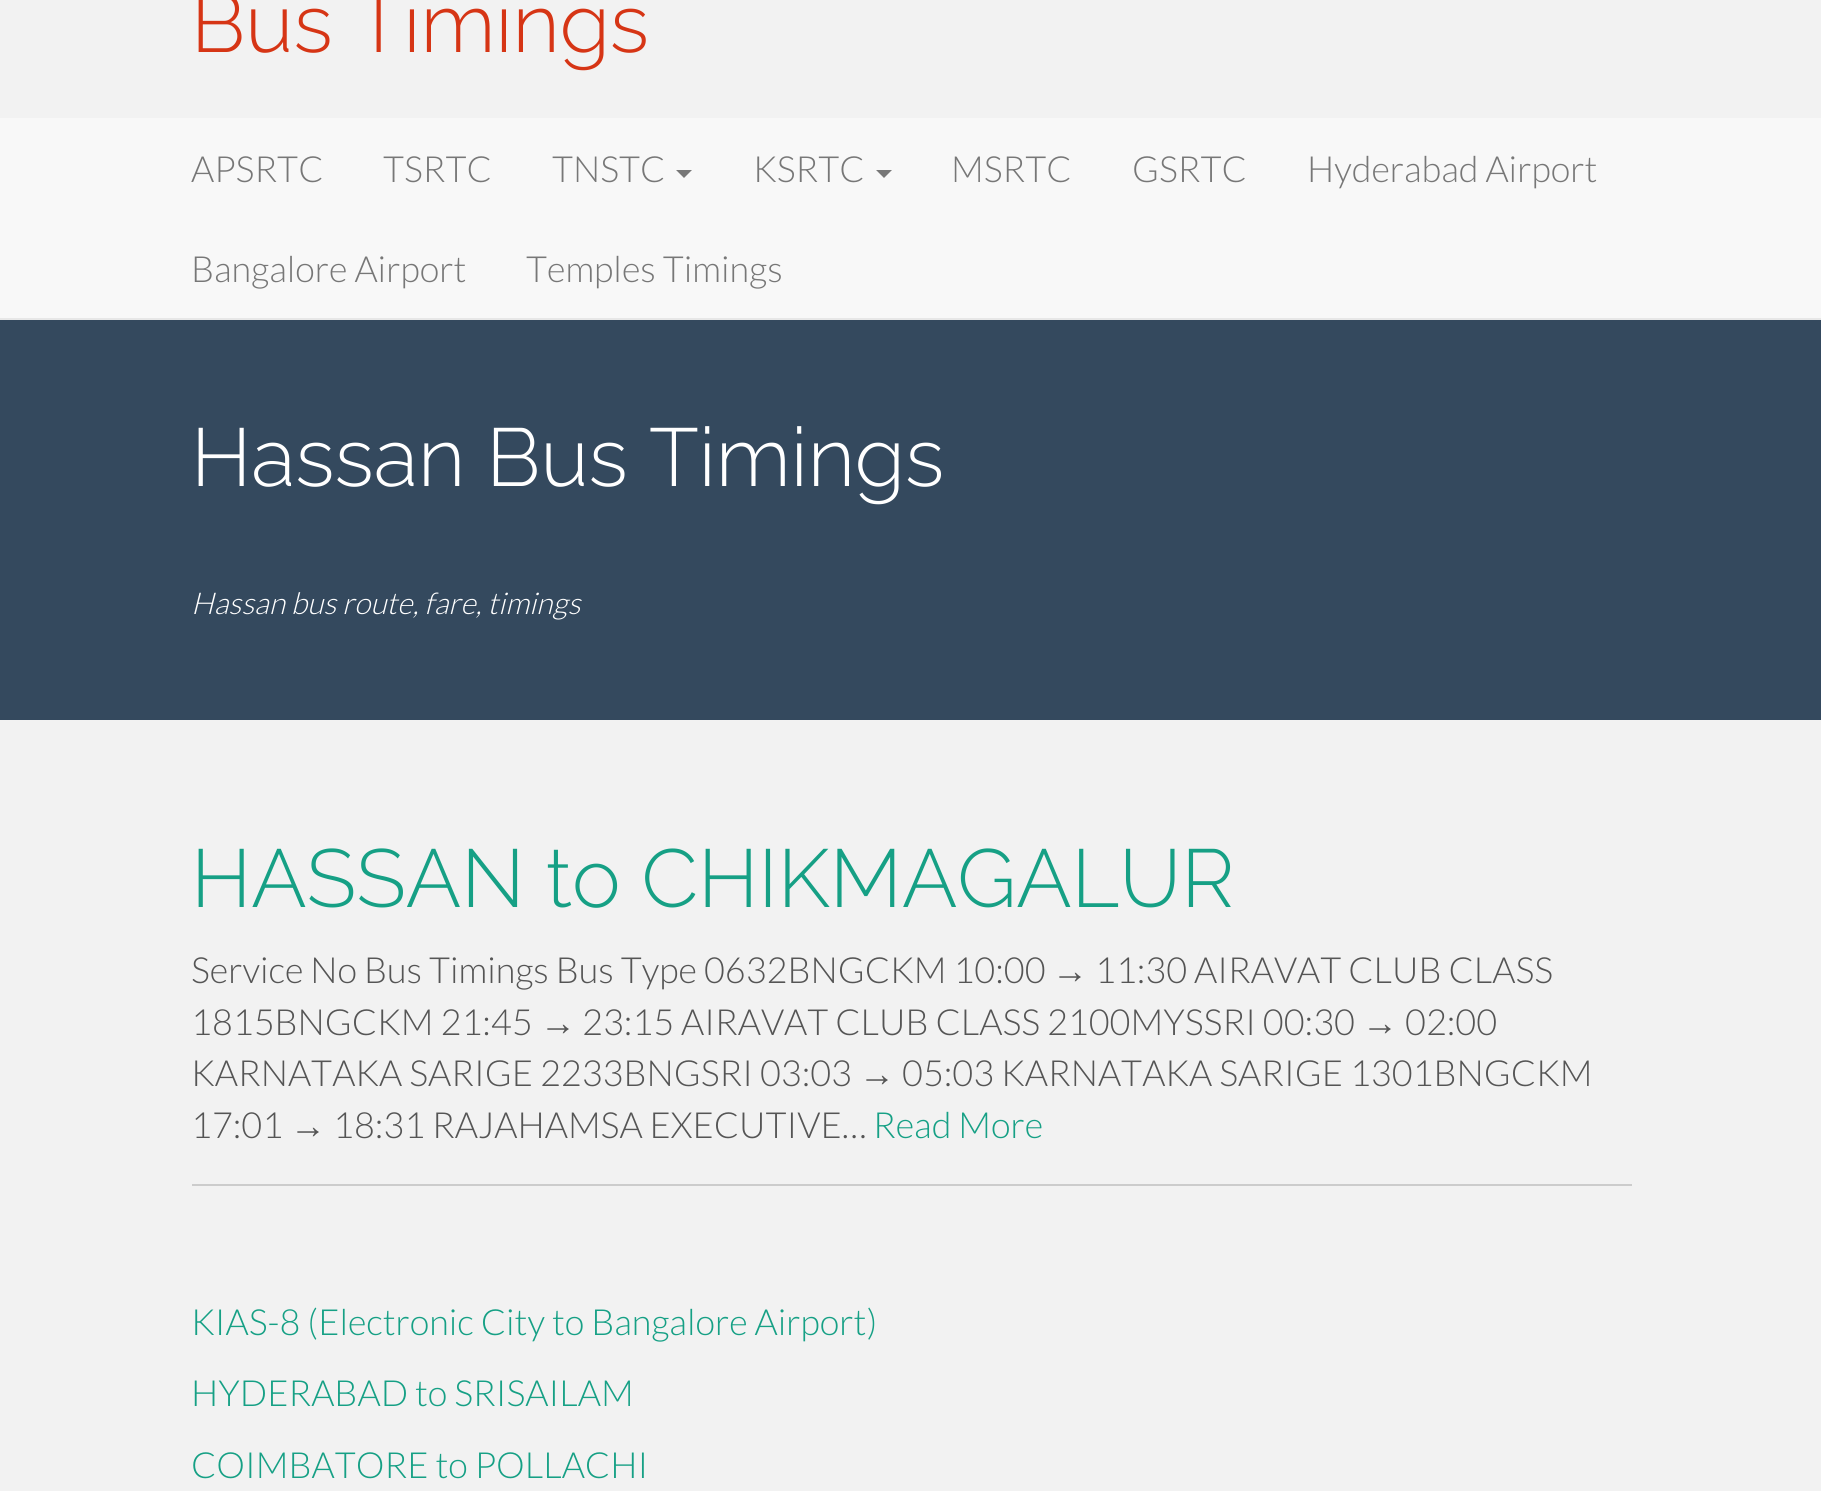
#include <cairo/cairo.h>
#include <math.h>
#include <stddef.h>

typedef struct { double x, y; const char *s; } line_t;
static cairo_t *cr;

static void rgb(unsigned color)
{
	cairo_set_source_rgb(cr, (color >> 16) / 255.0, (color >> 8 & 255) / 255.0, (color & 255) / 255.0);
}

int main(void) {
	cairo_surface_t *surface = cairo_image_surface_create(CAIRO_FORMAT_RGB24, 1821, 1491);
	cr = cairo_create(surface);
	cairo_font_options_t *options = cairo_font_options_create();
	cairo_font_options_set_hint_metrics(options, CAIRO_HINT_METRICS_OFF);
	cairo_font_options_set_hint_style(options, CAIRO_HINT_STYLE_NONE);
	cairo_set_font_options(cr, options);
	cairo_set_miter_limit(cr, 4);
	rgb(0xf2f2f2);
	cairo_paint(cr);
	rgb(0xf8f8f8);
	cairo_rectangle(cr, 0, 118, 1821, 200);
	cairo_fill(cr);
	rgb(0xe7e7e7);
	cairo_rectangle(cr, 0, 318, 1821, 2);
	cairo_fill(cr);
	rgb(0x777777);
	cairo_new_path(cr);
	cairo_move_to(cr, 676, 170);
	cairo_line_to(cr, 692, 170);
	cairo_line_to(cr, 684, 178);
	cairo_close_path(cr);
	cairo_fill(cr);
	cairo_new_path(cr);
	cairo_move_to(cr, 876, 170);
	cairo_line_to(cr, 892, 170);
	cairo_line_to(cr, 884, 178);
	cairo_close_path(cr);
	cairo_fill(cr);
	rgb(0x34495e);
	cairo_rectangle(cr, 0, 320, 1821, 400);
	cairo_fill(cr);
	rgb(0xcccccc);
	cairo_rectangle(cr, 192, 1184, 1440, 2);
	cairo_fill(cr);
	cairo_select_font_face(cr, "Raleway Light", CAIRO_FONT_SLANT_NORMAL, CAIRO_FONT_WEIGHT_NORMAL);
	cairo_set_font_size(cr, 82);
	rgb(0xd63515);
	cairo_move_to(cr, 191, 52);
	cairo_show_text(cr, "Bus Timings");
	cairo_select_font_face(cr, "Lato Light", CAIRO_FONT_SLANT_NORMAL, CAIRO_FONT_WEIGHT_NORMAL);
	cairo_set_font_size(cr, 36);
	rgb(0x777777);
	{
		static const line_t items[] = {
			{191, 182, "APSRTC"},
			{383, 182, "TSRTC"},
			{552, 182, "TNSTC"},
			{753, 182, "KSRTC"},
			{951, 182, "MSRTC"},
			{1132, 182, "GSRTC"},
			{1307, 182, "Hyderabad Airport"},
			{191, 282, "Bangalore Airport"},
			{526, 282, "Temples Timings"},
		};
		for (size_t i = 0; i < sizeof items / sizeof *items; i++) {
			cairo_move_to(cr, items[i].x, items[i].y);
			cairo_show_text(cr, items[i].s);
		}
	}
	cairo_select_font_face(cr, "Raleway Light", CAIRO_FONT_SLANT_NORMAL, CAIRO_FONT_WEIGHT_NORMAL);
	cairo_set_font_size(cr, 82);
	rgb(0xffffff);
	cairo_move_to(cr, 191, 486);
	cairo_show_text(cr, "Hassan Bus Timings");
	cairo_select_font_face(cr, "Lato Light", CAIRO_FONT_SLANT_ITALIC, CAIRO_FONT_WEIGHT_NORMAL);
	cairo_set_font_size(cr, 30);
	cairo_move_to(cr, 191, 614);
	cairo_show_text(cr, "Hassan bus route, fare, timings");
	cairo_select_font_face(cr, "Raleway Light", CAIRO_FONT_SLANT_NORMAL, CAIRO_FONT_WEIGHT_NORMAL);
	cairo_set_font_size(cr, 82);
	rgb(0x16a085);
	cairo_move_to(cr, 191, 907);
	cairo_show_text(cr, "HASSAN to CHIKMAGALUR");
	cairo_select_font_face(cr, "Lato Light", CAIRO_FONT_SLANT_NORMAL, CAIRO_FONT_WEIGHT_NORMAL);
	cairo_set_font_size(cr, 36);
	rgb(0x555555);
	cairo_move_to(cr, 191, 983);
	cairo_show_text(cr, "Service No Bus Timings Bus Type 0632BNGCKM 10:00");
	cairo_select_font_face(cr, "Liberation Sans", CAIRO_FONT_SLANT_NORMAL, CAIRO_FONT_WEIGHT_NORMAL);
	cairo_move_to(cr, 1052, 983);
	cairo_show_text(cr, "→");
	cairo_select_font_face(cr, "Lato Light", CAIRO_FONT_SLANT_NORMAL, CAIRO_FONT_WEIGHT_NORMAL);
	cairo_move_to(cr, 1095, 983);
	cairo_show_text(cr, "11:30 AIRAVAT CLUB CLASS");
	cairo_move_to(cr, 191, 1035);
	cairo_show_text(cr, "1815BNGCKM 21:45");
	cairo_select_font_face(cr, "Liberation Sans", CAIRO_FONT_SLANT_NORMAL, CAIRO_FONT_WEIGHT_NORMAL);
	cairo_move_to(cr, 540, 1035);
	cairo_show_text(cr, "→");
	cairo_select_font_face(cr, "Lato Light", CAIRO_FONT_SLANT_NORMAL, CAIRO_FONT_WEIGHT_NORMAL);
	cairo_move_to(cr, 582, 1035);
	cairo_show_text(cr, "23:15 AIRAVAT CLUB CLASS 2100MYSSRI 00:30");
	cairo_select_font_face(cr, "Liberation Sans", CAIRO_FONT_SLANT_NORMAL, CAIRO_FONT_WEIGHT_NORMAL);
	cairo_move_to(cr, 1362, 1035);
	cairo_show_text(cr, "→");
	cairo_select_font_face(cr, "Lato Light", CAIRO_FONT_SLANT_NORMAL, CAIRO_FONT_WEIGHT_NORMAL);
	cairo_move_to(cr, 1405, 1035);
	cairo_show_text(cr, "02:00");
	cairo_move_to(cr, 191, 1086);
	cairo_show_text(cr, "KARNATAKA SARIGE 2233BNGSRI 03:03");
	cairo_select_font_face(cr, "Liberation Sans", CAIRO_FONT_SLANT_NORMAL, CAIRO_FONT_WEIGHT_NORMAL);
	cairo_move_to(cr, 859, 1086);
	cairo_show_text(cr, "→");
	cairo_select_font_face(cr, "Lato Light", CAIRO_FONT_SLANT_NORMAL, CAIRO_FONT_WEIGHT_NORMAL);
	cairo_move_to(cr, 902, 1086);
	cairo_show_text(cr, "05:03 KARNATAKA SARIGE 1301BNGCKM");
	cairo_move_to(cr, 191, 1138);
	cairo_show_text(cr, "17:01");
	cairo_select_font_face(cr, "Liberation Sans", CAIRO_FONT_SLANT_NORMAL, CAIRO_FONT_WEIGHT_NORMAL);
	cairo_move_to(cr, 290, 1138);
	cairo_show_text(cr, "→");
	cairo_select_font_face(cr, "Lato Light", CAIRO_FONT_SLANT_NORMAL, CAIRO_FONT_WEIGHT_NORMAL);
	cairo_move_to(cr, 333, 1138);
	cairo_show_text(cr, "18:31 RAJAHAMSA EXECUTIVE…");
	rgb(0x16a085);
	{
		static const line_t items[] = {
			{873, 1138, "Read More"},
			{191, 1335, "KIAS-8 (Electronic City to Bangalore Airport)"},
			{191, 1406, "HYDERABAD to SRISAILAM"},
			{191, 1478, "COIMBATORE to POLLACHI"},
		};
		for (size_t i = 0; i < sizeof items / sizeof *items; i++) {
			cairo_move_to(cr, items[i].x, items[i].y);
			cairo_show_text(cr, items[i].s);
		}
	}
	cairo_surface_write_to_png(surface, "page.png");
	cairo_font_options_destroy(options);
	cairo_destroy(cr);
	cairo_surface_destroy(surface);
	return 0;
}
